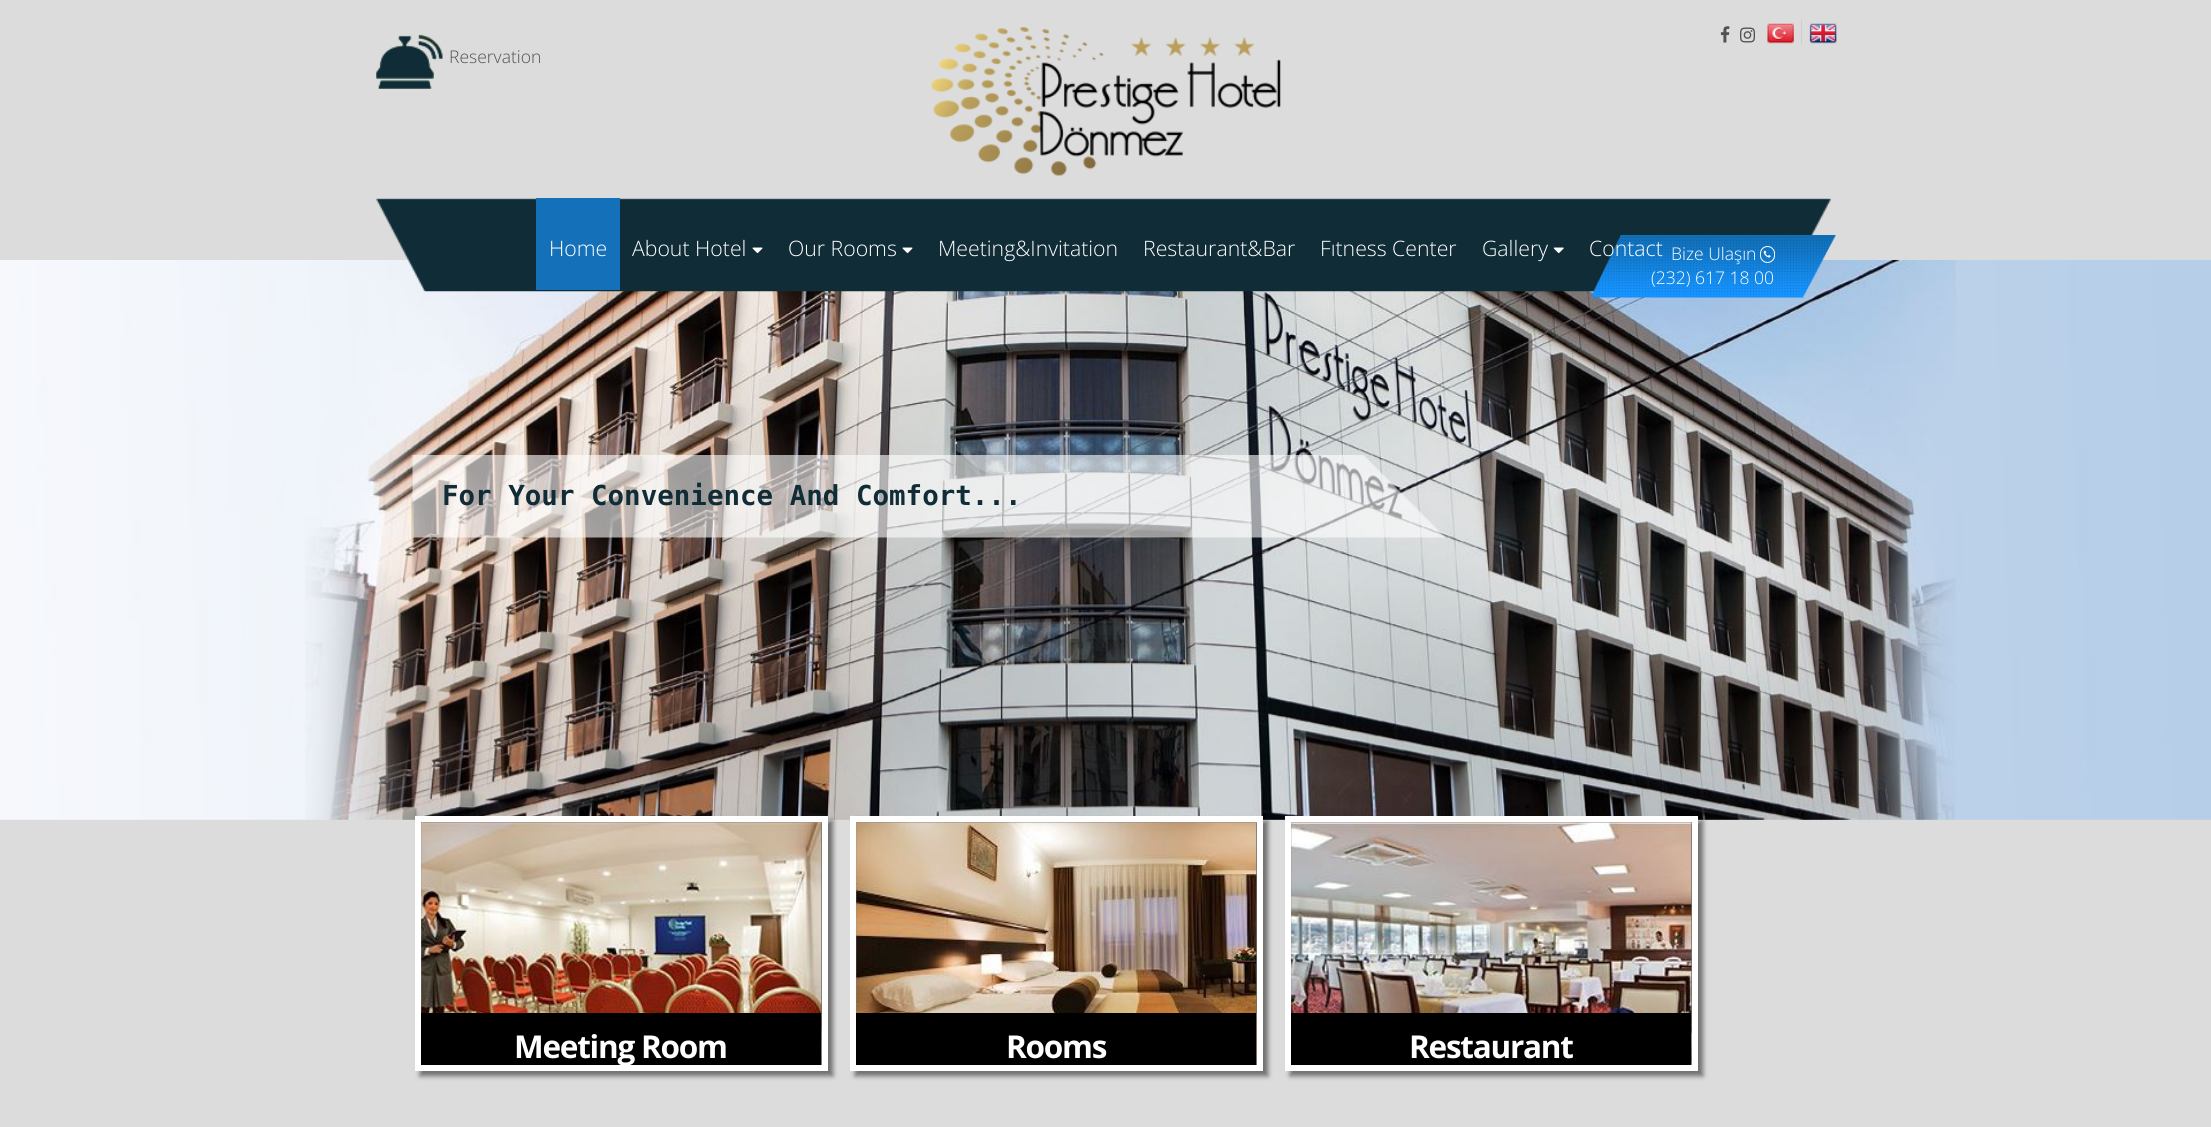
#include <cairo/cairo.h>
#include <math.h>
#include <stddef.h>

typedef struct { double x, y; const char *s; } line_t;
static cairo_t *cr;

static void rgb(unsigned color)
{
	cairo_set_source_rgb(cr, (color >> 16) / 255.0, (color >> 8 & 255) / 255.0, (color & 255) / 255.0);
}

static void tracked(double x, double y, const char *s, double letter, double word)
{
	cairo_move_to(cr, x, y);
	while (*s) {
		char ch[5] = {0};
		int n = 0;
		do ch[n++] = *s++; while ((*s & 0xC0) == 0x80);
		cairo_show_text(cr, ch);
		cairo_rel_move_to(cr, letter + word * (*ch == ' '), 0);
	}
}

static void rrect(double x, double y, double w, double h, double r)
{
	cairo_new_sub_path(cr);
	cairo_arc(cr, x + w - r, y + h - r, r, 0, M_PI / 2);
	cairo_arc(cr, x + r, y + h - r, r, M_PI / 2, M_PI);
	cairo_arc(cr, x + r, y + r, r, M_PI, 1.5 * M_PI);
	cairo_arc(cr, x + w - r, y + r, r, 1.5 * M_PI, 2 * M_PI);
	cairo_close_path(cr);
}

static void soft_shadow(double x, double y, double w, double h, double r, double blur, double alpha)
{
	cairo_push_group_with_content(cr, CAIRO_CONTENT_ALPHA);
	cairo_set_operator(cr, CAIRO_OPERATOR_SOURCE);
	for (int i = 15; i >= -15 && fmin(w, h) + blur * i / 3 > 0; i -= 2) {
		double e = blur * i / 6;
		cairo_set_source_rgba(cr, 0, 0, 0, alpha * erfc((i - 1) / 8.5) / 2);
		rrect(x - e, y - e, w + 2 * e, h + 2 * e, fmax(0, fmin(r + e + blur * .6, fmin(w, h) / 2 + e)));
		cairo_fill(cr);
	}
	cairo_pattern_t *soft = cairo_pop_group(cr);
	cairo_mask(cr, soft);
	cairo_pattern_destroy(soft);
}

static void image(const char *path, double x, double y, double w, double h)
{
	cairo_surface_t *image = cairo_image_surface_create_from_png(path);
	cairo_save(cr);
	cairo_set_source_surface(cr, image, x, y);
	cairo_rectangle(cr, x, y, w, h);
	cairo_fill(cr);
	cairo_restore(cr);
	cairo_surface_destroy(image);
}

int main(void) {
	cairo_surface_t *surface = cairo_image_surface_create(CAIRO_FORMAT_RGB24, 2211, 1127);
	cr = cairo_create(surface);
	cairo_font_options_t *options = cairo_font_options_create();
	cairo_font_options_set_hint_metrics(options, CAIRO_HINT_METRICS_OFF);
	cairo_font_options_set_hint_style(options, CAIRO_HINT_STYLE_NONE);
	cairo_set_font_options(cr, options);
	cairo_set_miter_limit(cr, 4);
	rgb(0xdcdcdc);
	cairo_paint(cr);
	image("img/1.png", 376, 34, 67, 55);
	image("img/2.png", 931, 27, 350, 149);
	image("img/3.png", 1720, 26, 10, 17);
	image("img/4.png", 1740, 27, 15, 16);
	image("img/5.png", 1767, 23, 27, 21);
	rgb(0xcccccc);
	cairo_rectangle(cr, 1801, 20, 1, 24);
	cairo_fill(cr);
	image("img/6.png", 1809, 23, 28, 21);
	image("img/12.png", 0, 260, 2211, 560);
	image("img/7.png", 376, 198, 1455, 94);
	rgb(0x1471b9);
	cairo_rectangle(cr, 536, 198, 84, 92);
	cairo_fill(cr);
	image("img/8.png", 752, 247, 11, 7);
	image("img/8.png", 902, 247, 11, 7);
	image("img/9.png", 1553, 247, 11, 7);
	image("img/10.png", 1592, 235, 244, 63);
	rrect(1760.5, 246.5, 14, 16, 7);
	rgb(0xffffff);
	cairo_set_line_width(cr, 1);
	cairo_stroke(cr);
	image("img/11.png", 1763, 250, 8, 8);
	image("img/13.png", 412, 455, 1034, 83);
	rgb(0x000000);
	soft_shadow(420, 821, 413, 255, 0, 2.5, 0.5);
	cairo_rectangle(cr, 418, 819, 407, 249);
	rgb(0xffffff);
	cairo_set_line_width(cr, 6);
	cairo_stroke(cr);
	image("img/14.png", 421, 822, 401, 243);
	rgb(0x000000);
	cairo_rectangle(cr, 421, 1013, 400, 52);
	cairo_fill(cr);
	rgb(0x000000);
	soft_shadow(855, 821, 413, 255, 0, 2.5, 0.5);
	cairo_rectangle(cr, 853, 819, 407, 249);
	rgb(0xffffff);
	cairo_stroke(cr);
	image("img/15.png", 856, 822, 401, 243);
	rgb(0x000000);
	cairo_rectangle(cr, 856, 1013, 400, 52);
	cairo_fill(cr);
	rgb(0x000000);
	soft_shadow(1290, 821, 413, 255, 0, 2.5, 0.5);
	cairo_rectangle(cr, 1288, 819, 407, 249);
	rgb(0xffffff);
	cairo_stroke(cr);
	image("img/16.png", 1291, 822, 401, 243);
	rgb(0x000000);
	cairo_rectangle(cr, 1291, 1013, 400, 52);
	cairo_fill(cr);
	cairo_select_font_face(cr, "Open Sans Light", CAIRO_FONT_SLANT_NORMAL, CAIRO_FONT_WEIGHT_NORMAL);
	cairo_set_font_size(cr, 17.5);
	rgb(0x52514f);
	cairo_move_to(cr, 449, 63);
	cairo_show_text(cr, "Reservation");
	cairo_set_font_size(cr, 21.25);
	rgb(0xffffff);
	{
		static const line_t items[] = {
			{549, 256, "Home"},
			{632, 256, "About Hotel"},
			{788, 256, "Our Rooms"},
			{938, 256, "Meeting&Invitation"},
			{1143, 256, "Restaurant&Bar"},
			{1320, 256, "Fıtness Center"},
			{1482, 256, "Gallery"},
			{1589, 256, "Contact"},
		};
		for (size_t i = 0; i < sizeof items / sizeof *items; i++) {
			cairo_move_to(cr, items[i].x, items[i].y);
			cairo_show_text(cr, items[i].s);
		}
	}
	cairo_set_font_size(cr, 17.5);
	cairo_move_to(cr, 1671, 260);
	cairo_show_text(cr, "Bize Ulaşın");
	cairo_move_to(cr, 1651, 284);
	cairo_show_text(cr, "(232) 617 18 00");
	cairo_select_font_face(cr, "DejaVu Sans Mono", CAIRO_FONT_SLANT_NORMAL, CAIRO_FONT_WEIGHT_BOLD);
	cairo_set_font_size(cr, 27.5);
	rgb(0x102c37);
	cairo_move_to(cr, 442, 505);
	cairo_show_text(cr, "For Your Convenience And Comfort...");
	cairo_select_font_face(cr, "Open Sans", CAIRO_FONT_SLANT_NORMAL, CAIRO_FONT_WEIGHT_BOLD);
	cairo_set_font_size(cr, 31.5);
	rgb(0xffffff);
	{
		static const line_t items[] = {
			{514, 1058, "Meeting Room"},
			{1006, 1058, "Rooms"},
			{1409, 1058, "Restaurant"},
		};
		for (size_t i = 0; i < sizeof items / sizeof *items; i++) {
			tracked(items[i].x, items[i].y, items[i].s, -1.25, 0);
		}
	}
	cairo_surface_write_to_png(surface, "page.png");
	cairo_font_options_destroy(options);
	cairo_destroy(cr);
	cairo_surface_destroy(surface);
	return 0;
}
